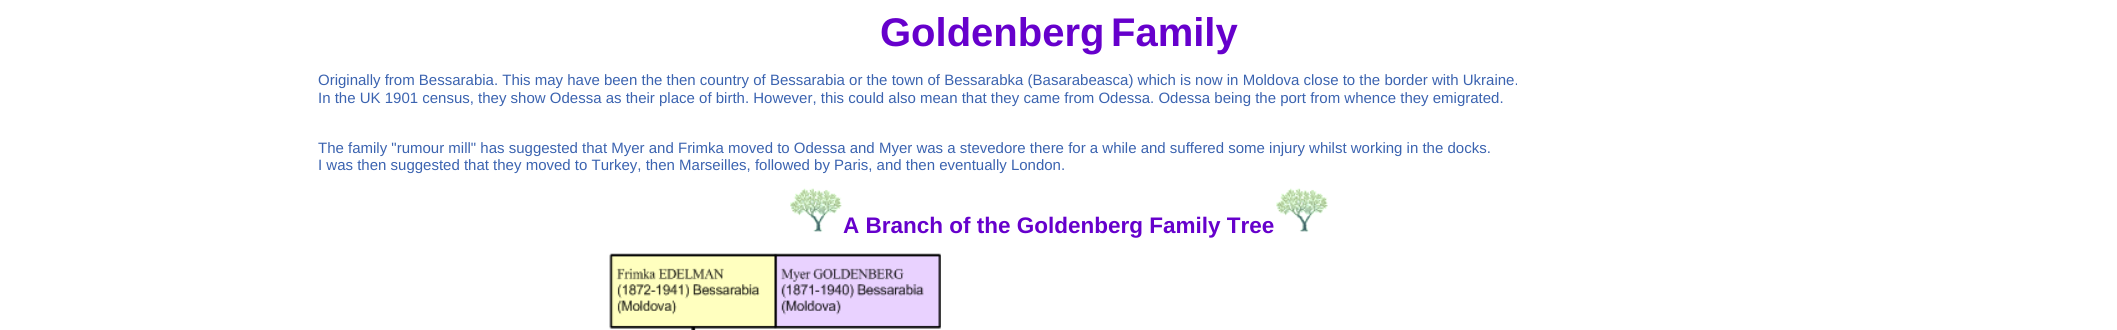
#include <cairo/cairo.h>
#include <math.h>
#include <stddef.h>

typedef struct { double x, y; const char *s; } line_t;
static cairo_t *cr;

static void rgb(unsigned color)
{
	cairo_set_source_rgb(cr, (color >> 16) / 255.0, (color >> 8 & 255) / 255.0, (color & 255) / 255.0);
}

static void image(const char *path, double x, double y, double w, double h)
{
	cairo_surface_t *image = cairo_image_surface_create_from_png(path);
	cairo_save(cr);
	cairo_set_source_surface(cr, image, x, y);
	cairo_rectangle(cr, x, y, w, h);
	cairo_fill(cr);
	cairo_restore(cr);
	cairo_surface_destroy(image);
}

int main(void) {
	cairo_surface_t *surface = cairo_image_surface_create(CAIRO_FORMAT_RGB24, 2117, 330);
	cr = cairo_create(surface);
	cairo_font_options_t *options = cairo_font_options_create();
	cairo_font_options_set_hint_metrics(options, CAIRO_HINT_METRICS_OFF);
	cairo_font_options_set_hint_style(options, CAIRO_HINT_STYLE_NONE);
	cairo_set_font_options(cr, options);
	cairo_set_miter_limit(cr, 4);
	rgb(0xffffff);
	cairo_paint(cr);
	image("img/1.png", 790, 188, 52, 45);
	image("img/2.png", 1276, 188, 52, 45);
	image("img/3.png", 609, 253, 332, 77);
	cairo_select_font_face(cr, "Liberation Sans", CAIRO_FONT_SLANT_NORMAL, CAIRO_FONT_WEIGHT_BOLD);
	cairo_set_font_size(cr, 40);
	rgb(0x6600cc);
	cairo_move_to(cr, 880, 46);
	cairo_show_text(cr, "Goldenberg");
	cairo_move_to(cr, 1111, 46);
	cairo_show_text(cr, "Family");
	cairo_select_font_face(cr, "Liberation Sans", CAIRO_FONT_SLANT_NORMAL, CAIRO_FONT_WEIGHT_NORMAL);
	cairo_set_font_size(cr, 15);
	rgb(0x3b63b0);
	{
		static const line_t items[] = {
			{318, 85, "Originally from Bessarabia. This may have been the then country of Bessarabia or the town of Bessarabka (Basarabeasca) which is now in Moldova close to the border with Ukraine."},
			{318, 103, "In the UK 1901 census, they show Odessa as their place of birth. However, this could also mean that they came from Odessa. Odessa being the port from whence they emigrated."},
			{318, 153, "The family \"rumour mill\" has suggested that Myer and Frimka moved to Odessa and Myer was a stevedore there for a while and suffered some injury whilst working in the docks."},
			{318, 170, "I was then suggested that they moved to Turkey, then Marseilles, followed by Paris, and then eventually London."},
		};
		for (size_t i = 0; i < sizeof items / sizeof *items; i++) {
			cairo_move_to(cr, items[i].x, items[i].y);
			cairo_show_text(cr, items[i].s);
		}
	}
	cairo_select_font_face(cr, "Liberation Sans", CAIRO_FONT_SLANT_NORMAL, CAIRO_FONT_WEIGHT_BOLD);
	cairo_set_font_size(cr, 22.5);
	rgb(0x6600cc);
	cairo_move_to(cr, 843, 233);
	cairo_show_text(cr, "A Branch of the Goldenberg Family Tree");
	cairo_surface_write_to_png(surface, "page.png");
	cairo_font_options_destroy(options);
	cairo_destroy(cr);
	cairo_surface_destroy(surface);
	return 0;
}
